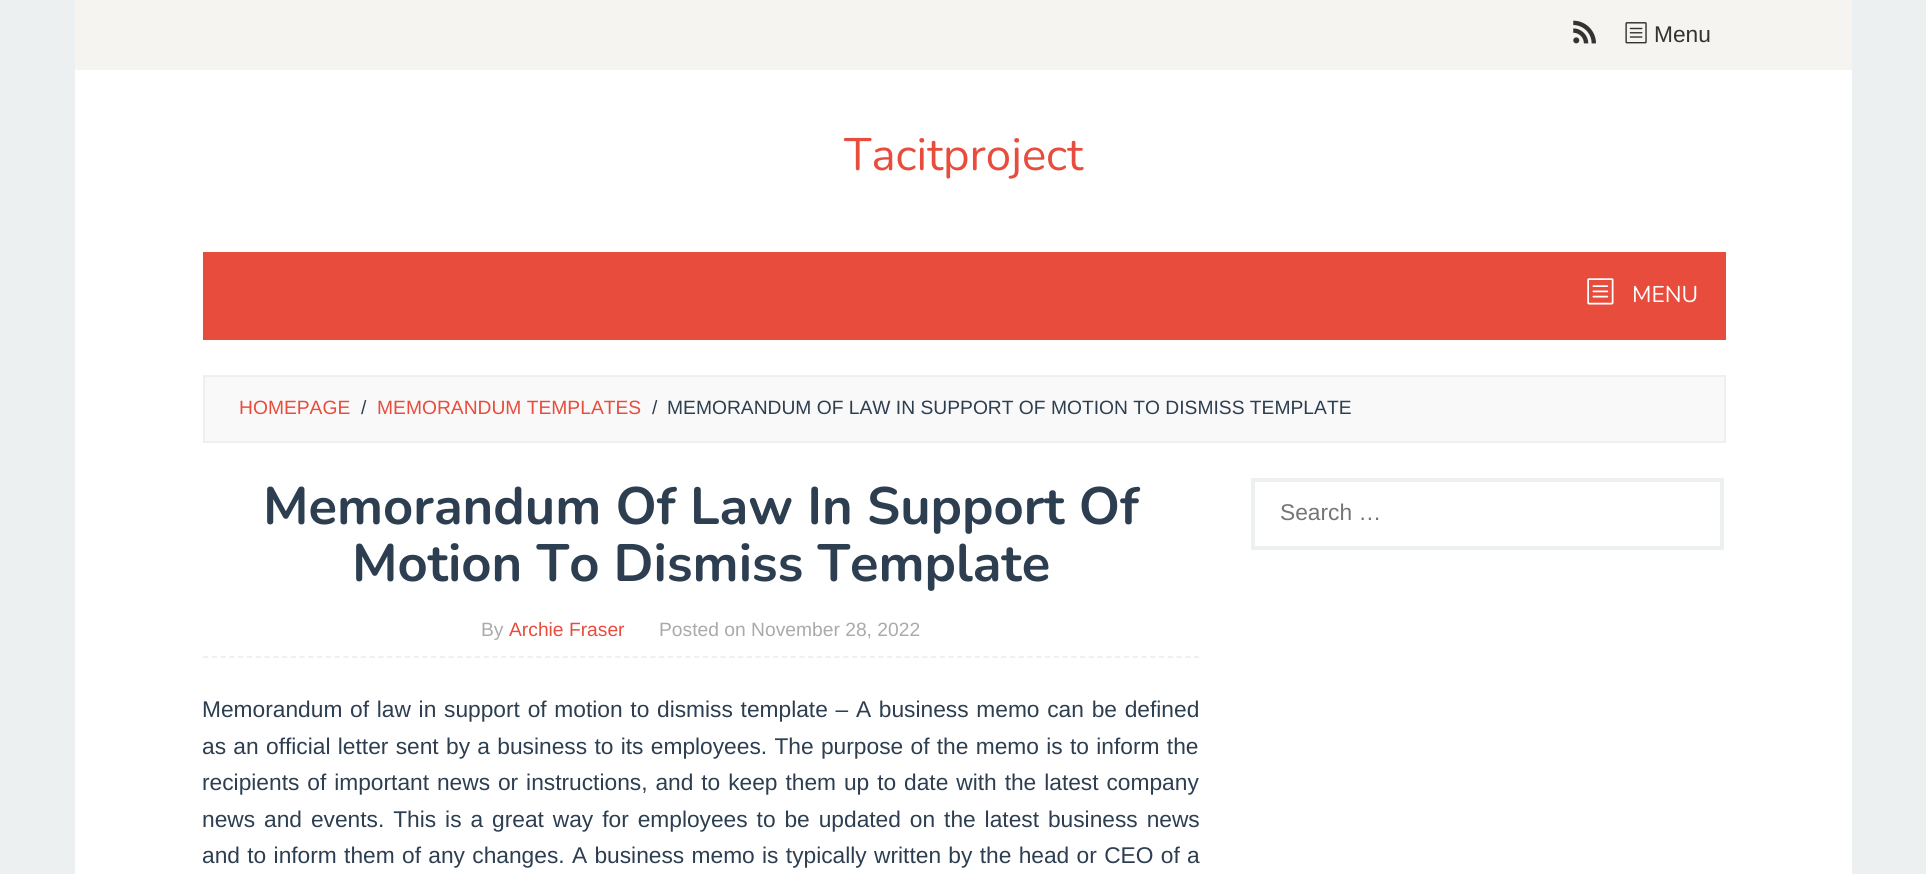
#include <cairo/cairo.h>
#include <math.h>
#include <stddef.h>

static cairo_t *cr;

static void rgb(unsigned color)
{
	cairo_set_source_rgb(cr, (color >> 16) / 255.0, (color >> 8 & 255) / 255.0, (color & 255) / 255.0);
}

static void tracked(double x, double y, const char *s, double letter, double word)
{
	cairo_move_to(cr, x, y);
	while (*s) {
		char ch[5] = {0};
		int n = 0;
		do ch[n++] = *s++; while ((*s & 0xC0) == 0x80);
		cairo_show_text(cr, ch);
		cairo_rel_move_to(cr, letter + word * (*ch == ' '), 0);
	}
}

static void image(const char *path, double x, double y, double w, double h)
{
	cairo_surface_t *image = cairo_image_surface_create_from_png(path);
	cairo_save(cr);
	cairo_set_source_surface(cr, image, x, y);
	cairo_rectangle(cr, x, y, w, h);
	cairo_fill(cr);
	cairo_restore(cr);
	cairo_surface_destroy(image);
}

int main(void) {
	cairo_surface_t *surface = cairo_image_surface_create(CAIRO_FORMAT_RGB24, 1926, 874);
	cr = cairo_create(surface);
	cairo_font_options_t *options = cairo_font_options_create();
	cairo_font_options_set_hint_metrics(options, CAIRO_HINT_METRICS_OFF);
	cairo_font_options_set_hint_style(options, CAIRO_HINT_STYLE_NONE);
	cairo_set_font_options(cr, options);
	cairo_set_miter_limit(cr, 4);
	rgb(0xecf0f1);
	cairo_paint(cr);
	rgb(0xffffff);
	cairo_rectangle(cr, 75, 70, 1777, 804);
	cairo_fill(cr);
	rgb(0xf6f4f1);
	cairo_rectangle(cr, 75, 0, 1777, 70);
	cairo_fill(cr);
	image("img/1.png", 1573, 20, 23, 24);
	image("img/2.png", 1625, 22, 22, 22);
	rgb(0xe74c3c);
	cairo_rectangle(cr, 203, 252, 1523, 88);
	cairo_fill(cr);
	image("img/3.png", 1587, 278, 27, 27);
	rgb(0xf9f9f9);
	cairo_rectangle(cr, 204, 376, 1521, 66);
	cairo_fill_preserve(cr);
	rgb(0xecf0f1);
	cairo_stroke(cr);
	cairo_new_path(cr);
	cairo_move_to(cr, 203, 657);
	cairo_line_to(cr, 1199, 657);
	cairo_set_line_width(cr, 1.8);
	cairo_set_dash(cr, (double[]){5.25, 3.52}, 2, 0);
	cairo_stroke(cr);
	cairo_rectangle(cr, 1253, 480, 469, 68);
	cairo_set_line_width(cr, 4);
	cairo_set_dash(cr, NULL, 0, 0);
	cairo_stroke(cr);
	cairo_select_font_face(cr, "Liberation Sans", CAIRO_FONT_SLANT_NORMAL, CAIRO_FONT_WEIGHT_NORMAL);
	cairo_set_font_size(cr, 22.75);
	rgb(0x333333);
	cairo_move_to(cr, 1654, 42);
	cairo_show_text(cr, "Menu");
	cairo_select_font_face(cr, "Nunito", CAIRO_FONT_SLANT_NORMAL, CAIRO_FONT_WEIGHT_NORMAL);
	cairo_set_font_size(cr, 45.5);
	rgb(0xe74c3c);
	cairo_move_to(cr, 844, 170);
	cairo_show_text(cr, "Tacitproject");
	cairo_set_font_size(cr, 22.75);
	rgb(0xffffff);
	cairo_move_to(cr, 1632, 302);
	cairo_show_text(cr, "MENU");
	cairo_select_font_face(cr, "Liberation Sans", CAIRO_FONT_SLANT_NORMAL, CAIRO_FONT_WEIGHT_NORMAL);
	cairo_set_font_size(cr, 19.25);
	rgb(0xe74c3c);
	cairo_move_to(cr, 239, 414);
	cairo_show_text(cr, "HOMEPAGE");
	rgb(0x2c3e50);
	cairo_move_to(cr, 361, 414);
	cairo_show_text(cr, "/");
	rgb(0xe74c3c);
	cairo_move_to(cr, 377, 414);
	cairo_show_text(cr, "MEMORANDUM TEMPLATES");
	rgb(0x2c3e50);
	cairo_move_to(cr, 652, 414);
	cairo_show_text(cr, "/");
	cairo_move_to(cr, 667, 414);
	cairo_show_text(cr, "MEMORANDUM OF LAW IN SUPPORT OF MOTION TO DISMISS TEMPLATE");
	cairo_select_font_face(cr, "Nunito", CAIRO_FONT_SLANT_NORMAL, CAIRO_FONT_WEIGHT_BOLD);
	cairo_set_font_size(cr, 52.5);
	cairo_move_to(cr, 263, 524);
	cairo_show_text(cr, "Memorandum Of Law In Support Of");
	cairo_move_to(cr, 352, 581);
	cairo_show_text(cr, "Motion To Dismiss Template");
	cairo_select_font_face(cr, "Liberation Sans", CAIRO_FONT_SLANT_NORMAL, CAIRO_FONT_WEIGHT_NORMAL);
	cairo_set_font_size(cr, 19.25);
	rgb(0xaaaaaa);
	cairo_move_to(cr, 481, 636);
	cairo_show_text(cr, "By");
	rgb(0xe74c3c);
	cairo_move_to(cr, 509, 636);
	cairo_show_text(cr, "Archie Fraser");
	rgb(0xaaaaaa);
	cairo_move_to(cr, 659, 636);
	cairo_show_text(cr, "Posted on November 28, 2022");
	cairo_set_font_size(cr, 22.75);
	rgb(0x2c3e50);
	tracked(202, 717, "Memorandum of law in support of motion to dismiss template – A business memo can be defined", 0, 1.4);
	tracked(202, 754, "as an official letter sent by a business to its employees. The purpose of the memo is to inform the", 0, 1);
	tracked(202, 790, "recipients of important news or instructions, and to keep them up to date with the latest company", 0, 1.6);
	tracked(202, 827, "news and events. This is a great way for employees to be updated on the latest business news", 0, 2.6);
	tracked(202, 863, "and to inform them of any changes. A business memo is typically written by the head or CEO of a", 0, 1);
	rgb(0x757575);
	cairo_move_to(cr, 1280, 520);
	cairo_show_text(cr, "Search …");
	cairo_surface_write_to_png(surface, "page.png");
	cairo_font_options_destroy(options);
	cairo_destroy(cr);
	cairo_surface_destroy(surface);
	return 0;
}
